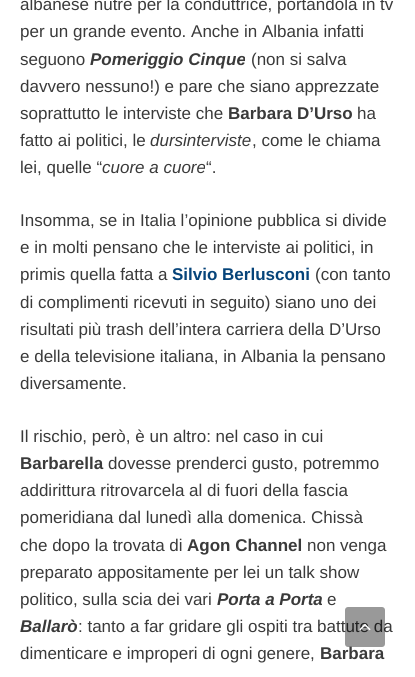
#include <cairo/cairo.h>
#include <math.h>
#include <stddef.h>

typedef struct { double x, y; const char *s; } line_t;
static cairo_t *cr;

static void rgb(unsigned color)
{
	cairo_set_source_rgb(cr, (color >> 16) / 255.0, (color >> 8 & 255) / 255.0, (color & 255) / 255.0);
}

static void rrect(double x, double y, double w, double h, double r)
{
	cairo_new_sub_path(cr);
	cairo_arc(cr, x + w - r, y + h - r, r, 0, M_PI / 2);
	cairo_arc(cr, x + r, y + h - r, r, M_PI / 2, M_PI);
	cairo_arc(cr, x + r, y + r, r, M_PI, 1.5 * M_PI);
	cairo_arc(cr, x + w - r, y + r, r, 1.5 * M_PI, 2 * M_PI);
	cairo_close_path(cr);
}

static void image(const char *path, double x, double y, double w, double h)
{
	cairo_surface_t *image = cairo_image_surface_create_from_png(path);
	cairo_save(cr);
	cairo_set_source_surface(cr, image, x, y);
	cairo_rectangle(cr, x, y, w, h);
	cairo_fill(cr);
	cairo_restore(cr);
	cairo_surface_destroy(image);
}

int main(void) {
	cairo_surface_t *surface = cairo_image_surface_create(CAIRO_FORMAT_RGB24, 415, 677);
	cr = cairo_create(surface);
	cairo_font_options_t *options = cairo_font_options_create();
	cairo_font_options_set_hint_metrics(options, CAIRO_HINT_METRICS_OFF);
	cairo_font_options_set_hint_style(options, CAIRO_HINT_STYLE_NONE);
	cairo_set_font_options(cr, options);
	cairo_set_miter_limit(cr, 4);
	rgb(0xffffff);
	cairo_paint(cr);
	cairo_select_font_face(cr, "Liberation Sans", CAIRO_FONT_SLANT_NORMAL, CAIRO_FONT_WEIGHT_NORMAL);
	cairo_set_font_size(cr, 17);
	rgb(0x3a3a3a);
	{
		static const line_t items[] = {
			{20, 10, "albanese nutre per la conduttrice, portandola in tv"},
			{20, 37, "per un grande evento. Anche in Albania infatti"},
			{20, 65, "seguono"},
		};
		for (size_t i = 0; i < sizeof items / sizeof *items; i++) {
			cairo_move_to(cr, items[i].x, items[i].y);
			cairo_show_text(cr, items[i].s);
		}
	}
	cairo_select_font_face(cr, "Liberation Sans", CAIRO_FONT_SLANT_ITALIC, CAIRO_FONT_WEIGHT_BOLD);
	cairo_move_to(cr, 90, 65);
	cairo_show_text(cr, "Pomeriggio Cinque");
	cairo_select_font_face(cr, "Liberation Sans", CAIRO_FONT_SLANT_NORMAL, CAIRO_FONT_WEIGHT_NORMAL);
	{
		static const line_t items[] = {
			{251, 65, "(non si salva"},
			{20, 92, "davvero nessuno!) e pare che siano apprezzate"},
			{20, 119, "soprattutto le interviste che"},
		};
		for (size_t i = 0; i < sizeof items / sizeof *items; i++) {
			cairo_move_to(cr, items[i].x, items[i].y);
			cairo_show_text(cr, items[i].s);
		}
	}
	cairo_select_font_face(cr, "Liberation Sans", CAIRO_FONT_SLANT_NORMAL, CAIRO_FONT_WEIGHT_BOLD);
	cairo_move_to(cr, 228, 119);
	cairo_show_text(cr, "Barbara D’Urso");
	cairo_select_font_face(cr, "Liberation Sans", CAIRO_FONT_SLANT_NORMAL, CAIRO_FONT_WEIGHT_NORMAL);
	cairo_move_to(cr, 357, 119);
	cairo_show_text(cr, "ha");
	cairo_move_to(cr, 20, 146);
	cairo_show_text(cr, "fatto ai politici, le");
	cairo_select_font_face(cr, "Liberation Sans", CAIRO_FONT_SLANT_ITALIC, CAIRO_FONT_WEIGHT_NORMAL);
	cairo_move_to(cr, 150, 146);
	cairo_show_text(cr, "dursinterviste");
	cairo_select_font_face(cr, "Liberation Sans", CAIRO_FONT_SLANT_NORMAL, CAIRO_FONT_WEIGHT_NORMAL);
	cairo_move_to(cr, 252, 146);
	cairo_show_text(cr, ", come le chiama");
	cairo_move_to(cr, 20, 173);
	cairo_show_text(cr, "lei, quelle “");
	cairo_select_font_face(cr, "Liberation Sans", CAIRO_FONT_SLANT_ITALIC, CAIRO_FONT_WEIGHT_NORMAL);
	cairo_move_to(cr, 102, 173);
	cairo_show_text(cr, "cuore a cuore");
	cairo_select_font_face(cr, "Liberation Sans", CAIRO_FONT_SLANT_NORMAL, CAIRO_FONT_WEIGHT_NORMAL);
	{
		static const line_t items[] = {
			{206, 173, "“."},
			{20, 226, "Insomma, se in Italia l’opinione pubblica si divide"},
			{20, 253, "e in molti pensano che le interviste ai politici, in"},
			{20, 280, "primis quella fatta a"},
		};
		for (size_t i = 0; i < sizeof items / sizeof *items; i++) {
			cairo_move_to(cr, items[i].x, items[i].y);
			cairo_show_text(cr, items[i].s);
		}
	}
	cairo_select_font_face(cr, "Liberation Sans", CAIRO_FONT_SLANT_NORMAL, CAIRO_FONT_WEIGHT_BOLD);
	rgb(0x06447a);
	cairo_move_to(cr, 172, 280);
	cairo_show_text(cr, "Silvio Berlusconi");
	cairo_select_font_face(cr, "Liberation Sans", CAIRO_FONT_SLANT_NORMAL, CAIRO_FONT_WEIGHT_NORMAL);
	rgb(0x3a3a3a);
	{
		static const line_t items[] = {
			{315, 280, "(con tanto"},
			{20, 308, "di complimenti ricevuti in seguito) siano uno dei"},
			{20, 335, "risultati più trash dell’intera carriera della D’Urso"},
			{20, 362, "e della televisione italiana, in Albania la pensano"},
			{20, 389, "diversamente."},
			{20, 442, "Il rischio, però, è un altro: nel caso in cui"},
		};
		for (size_t i = 0; i < sizeof items / sizeof *items; i++) {
			cairo_move_to(cr, items[i].x, items[i].y);
			cairo_show_text(cr, items[i].s);
		}
	}
	cairo_select_font_face(cr, "Liberation Sans", CAIRO_FONT_SLANT_NORMAL, CAIRO_FONT_WEIGHT_BOLD);
	cairo_move_to(cr, 20, 469);
	cairo_show_text(cr, "Barbarella");
	cairo_select_font_face(cr, "Liberation Sans", CAIRO_FONT_SLANT_NORMAL, CAIRO_FONT_WEIGHT_NORMAL);
	{
		static const line_t items[] = {
			{108, 469, "dovesse prenderci gusto, potremmo"},
			{20, 496, "addirittura ritrovarcela al di fuori della fascia"},
			{20, 523, "pomeridiana dal lunedì alla domenica. Chissà"},
			{20, 551, "che dopo la trovata di"},
		};
		for (size_t i = 0; i < sizeof items / sizeof *items; i++) {
			cairo_move_to(cr, items[i].x, items[i].y);
			cairo_show_text(cr, items[i].s);
		}
	}
	cairo_select_font_face(cr, "Liberation Sans", CAIRO_FONT_SLANT_NORMAL, CAIRO_FONT_WEIGHT_BOLD);
	cairo_move_to(cr, 187, 551);
	cairo_show_text(cr, "Agon Channel");
	cairo_select_font_face(cr, "Liberation Sans", CAIRO_FONT_SLANT_NORMAL, CAIRO_FONT_WEIGHT_NORMAL);
	{
		static const line_t items[] = {
			{307, 551, "non venga"},
			{20, 578, "preparato appositamente per lei un talk show"},
			{20, 605, "politico, sulla scia dei vari"},
		};
		for (size_t i = 0; i < sizeof items / sizeof *items; i++) {
			cairo_move_to(cr, items[i].x, items[i].y);
			cairo_show_text(cr, items[i].s);
		}
	}
	cairo_select_font_face(cr, "Liberation Sans", CAIRO_FONT_SLANT_ITALIC, CAIRO_FONT_WEIGHT_BOLD);
	cairo_move_to(cr, 217, 605);
	cairo_show_text(cr, "Porta a Porta");
	cairo_select_font_face(cr, "Liberation Sans", CAIRO_FONT_SLANT_NORMAL, CAIRO_FONT_WEIGHT_NORMAL);
	cairo_move_to(cr, 327, 605);
	cairo_show_text(cr, "e");
	cairo_select_font_face(cr, "Liberation Sans", CAIRO_FONT_SLANT_ITALIC, CAIRO_FONT_WEIGHT_BOLD);
	cairo_move_to(cr, 20, 632);
	cairo_show_text(cr, "Ballarò");
	cairo_select_font_face(cr, "Liberation Sans", CAIRO_FONT_SLANT_NORMAL, CAIRO_FONT_WEIGHT_NORMAL);
	cairo_move_to(cr, 78, 632);
	cairo_show_text(cr, ": tanto a far gridare gli ospiti tra battute da");
	cairo_move_to(cr, 20, 659);
	cairo_show_text(cr, "dimenticare e improperi di ogni genere,");
	cairo_select_font_face(cr, "Liberation Sans", CAIRO_FONT_SLANT_NORMAL, CAIRO_FONT_WEIGHT_BOLD);
	cairo_move_to(cr, 320, 659);
	cairo_show_text(cr, "Barbara");
	cairo_set_source_rgba(cr, 0, 0, 0, 0.4);
	rrect(345, 607, 40, 40, 3);
	cairo_fill(cr);
	image("img/1.png", 359, 623, 12, 8);
	cairo_surface_write_to_png(surface, "page.png");
	cairo_font_options_destroy(options);
	cairo_destroy(cr);
	cairo_surface_destroy(surface);
	return 0;
}
